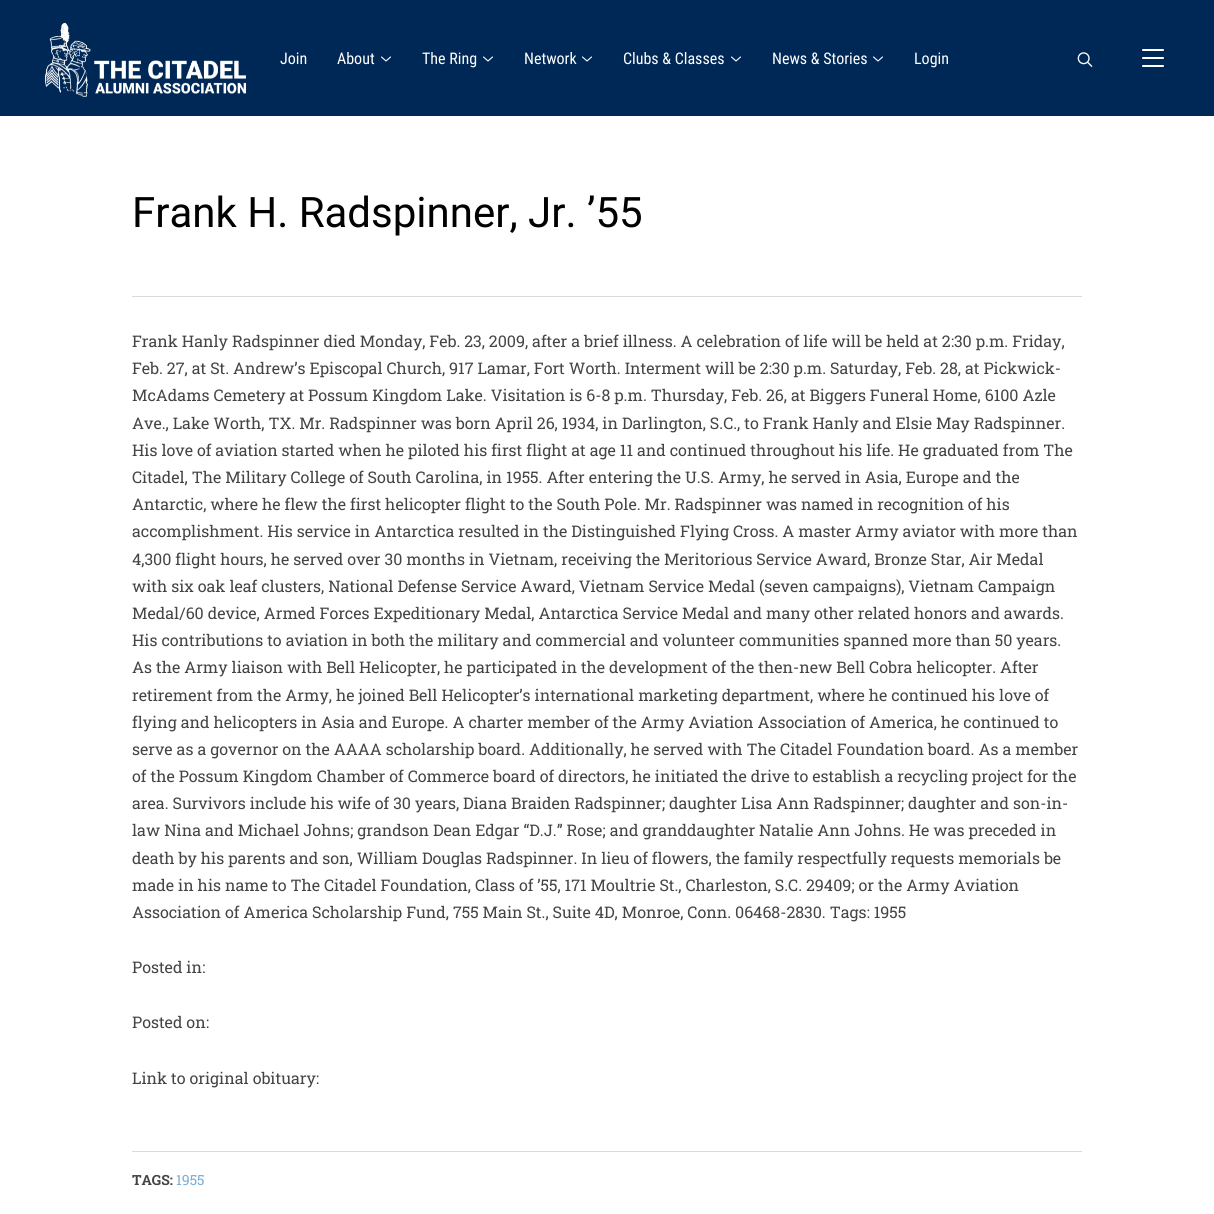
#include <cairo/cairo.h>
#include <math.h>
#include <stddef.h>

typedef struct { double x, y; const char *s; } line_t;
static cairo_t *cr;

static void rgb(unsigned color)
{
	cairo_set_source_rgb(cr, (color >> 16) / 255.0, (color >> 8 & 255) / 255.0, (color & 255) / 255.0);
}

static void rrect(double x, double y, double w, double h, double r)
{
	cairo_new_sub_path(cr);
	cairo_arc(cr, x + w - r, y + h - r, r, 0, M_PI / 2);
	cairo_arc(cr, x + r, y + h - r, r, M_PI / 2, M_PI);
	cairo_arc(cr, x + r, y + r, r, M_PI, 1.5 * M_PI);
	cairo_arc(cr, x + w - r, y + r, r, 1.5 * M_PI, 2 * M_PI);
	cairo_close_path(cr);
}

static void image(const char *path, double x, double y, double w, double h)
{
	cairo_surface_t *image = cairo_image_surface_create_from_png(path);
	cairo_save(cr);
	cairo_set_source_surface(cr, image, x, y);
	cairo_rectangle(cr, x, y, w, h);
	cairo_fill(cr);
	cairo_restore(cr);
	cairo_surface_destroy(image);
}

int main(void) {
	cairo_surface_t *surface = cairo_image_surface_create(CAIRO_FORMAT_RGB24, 1214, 1214);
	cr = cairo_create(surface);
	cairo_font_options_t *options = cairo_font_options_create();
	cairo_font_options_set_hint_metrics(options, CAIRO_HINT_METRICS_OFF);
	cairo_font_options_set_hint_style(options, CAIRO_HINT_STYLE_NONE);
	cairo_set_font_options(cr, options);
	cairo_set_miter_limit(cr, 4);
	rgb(0xffffff);
	cairo_paint(cr);
	rgb(0x002856);
	cairo_rectangle(cr, 0, 0, 1214, 116);
	cairo_fill(cr);
	image("img/1.png", 44, 22, 203, 75);
	cairo_new_path(cr);
	cairo_move_to(cr, 381.5, 57);
	cairo_line_to(cr, 386, 61);
	cairo_line_to(cr, 390.5, 57);
	rgb(0xffffff);
	cairo_set_line_width(cr, 1.1);
	cairo_set_line_cap(cr, CAIRO_LINE_CAP_ROUND);
	cairo_set_line_join(cr, CAIRO_LINE_JOIN_ROUND);
	cairo_stroke(cr);
	cairo_new_path(cr);
	cairo_move_to(cr, 483.5, 57);
	cairo_line_to(cr, 488, 61);
	cairo_line_to(cr, 492.5, 57);
	cairo_stroke(cr);
	cairo_new_path(cr);
	cairo_move_to(cr, 582.5, 57);
	cairo_line_to(cr, 587, 61);
	cairo_line_to(cr, 591.5, 57);
	cairo_stroke(cr);
	cairo_new_path(cr);
	cairo_move_to(cr, 731.5, 57);
	cairo_line_to(cr, 736, 61);
	cairo_line_to(cr, 740.5, 57);
	cairo_stroke(cr);
	cairo_new_path(cr);
	cairo_move_to(cr, 873.5, 57);
	cairo_line_to(cr, 878, 61);
	cairo_line_to(cr, 882.5, 57);
	cairo_stroke(cr);
	image("img/2.png", 1077, 52, 16, 15);
	rrect(1142, 49, 22, 2, 1);
	cairo_fill(cr);
	rrect(1142, 57, 22, 2, 1);
	cairo_fill(cr);
	rrect(1142, 65, 22, 2, 1);
	cairo_fill(cr);
	rgb(0xdbdbdb);
	cairo_rectangle(cr, 132, 296, 950, 1);
	cairo_fill(cr);
	cairo_rectangle(cr, 132, 1151, 950, 1);
	cairo_fill(cr);
	cairo_select_font_face(cr, "Roboto Condensed", CAIRO_FONT_SLANT_NORMAL, CAIRO_FONT_WEIGHT_NORMAL);
	cairo_set_font_size(cr, 16);
	rgb(0xffffff);
	{
		static const line_t items[] = {
			{280, 64, "Join"},
			{337, 64, "About"},
			{422, 64, "The Ring"},
			{524, 64, "Network"},
			{623, 64, "Clubs & Classes"},
			{772, 64, "News & Stories"},
			{914, 64, "Login"},
		};
		for (size_t i = 0; i < sizeof items / sizeof *items; i++) {
			cairo_move_to(cr, items[i].x, items[i].y);
			cairo_show_text(cr, items[i].s);
		}
	}
	cairo_select_font_face(cr, "Roboto", CAIRO_FONT_SLANT_NORMAL, CAIRO_FONT_WEIGHT_NORMAL);
	cairo_set_font_size(cr, 42);
	rgb(0x000000);
	cairo_move_to(cr, 132, 227);
	cairo_show_text(cr, "Frank H. Radspinner, Jr. ’55");
	cairo_select_font_face(cr, "Roboto Slab", CAIRO_FONT_SLANT_NORMAL, CAIRO_FONT_WEIGHT_NORMAL);
	cairo_set_font_size(cr, 16);
	rgb(0x444444);
	{
		static const line_t items[] = {
			{132, 347, "Frank Hanly Radspinner died Monday, Feb. 23, 2009, after a brief illness. A celebration of life will be held at 2:30 p.m. Friday,"},
			{132, 374, "Feb. 27, at St. Andrew’s Episcopal Church, 917 Lamar, Fort Worth. Interment will be 2:30 p.m. Saturday, Feb. 28, at Pickwick-"},
			{132, 401, "McAdams Cemetery at Possum Kingdom Lake. Visitation is 6-8 p.m. Thursday, Feb. 26, at Biggers Funeral Home, 6100 Azle"},
			{132, 429, "Ave., Lake Worth, TX. Mr. Radspinner was born April 26, 1934, in Darlington, S.C., to Frank Hanly and Elsie May Radspinner."},
			{132, 456, "His love of aviation started when he piloted his first flight at age 11 and continued throughout his life. He graduated from The"},
			{132, 483, "Citadel, The Military College of South Carolina, in 1955. After entering the U.S. Army, he served in Asia, Europe and the"},
			{132, 510, "Antarctic, where he flew the first helicopter flight to the South Pole. Mr. Radspinner was named in recognition of his"},
			{132, 537, "accomplishment. His service in Antarctica resulted in the Distinguished Flying Cross. A master Army aviator with more than"},
			{132, 565, "4,300 flight hours, he served over 30 months in Vietnam, receiving the Meritorious Service Award, Bronze Star, Air Medal"},
			{132, 592, "with six oak leaf clusters, National Defense Service Award, Vietnam Service Medal (seven campaigns), Vietnam Campaign"},
			{132, 619, "Medal/60 device, Armed Forces Expeditionary Medal, Antarctica Service Medal and many other related honors and awards."},
			{132, 646, "His contributions to aviation in both the military and commercial and volunteer communities spanned more than 50 years."},
			{132, 673, "As the Army liaison with Bell Helicopter, he participated in the development of the then-new Bell Cobra helicopter. After"},
			{132, 701, "retirement from the Army, he joined Bell Helicopter’s international marketing department, where he continued his love of"},
			{132, 728, "flying and helicopters in Asia and Europe. A charter member of the Army Aviation Association of America, he continued to"},
			{132, 755, "serve as a governor on the AAAA scholarship board. Additionally, he served with The Citadel Foundation board. As a member"},
			{132, 782, "of the Possum Kingdom Chamber of Commerce board of directors, he initiated the drive to establish a recycling project for the"},
			{132, 809, "area. Survivors include his wife of 30 years, Diana Braiden Radspinner; daughter Lisa Ann Radspinner; daughter and son-in-"},
			{132, 836, "law Nina and Michael Johns; grandson Dean Edgar “D.J.” Rose; and granddaughter Natalie Ann Johns. He was preceded in"},
			{132, 864, "death by his parents and son, William Douglas Radspinner. In lieu of flowers, the family respectfully requests memorials be"},
			{132, 891, "made in his name to The Citadel Foundation, Class of ’55, 171 Moultrie St., Charleston, S.C. 29409; or the Army Aviation"},
			{132, 918, "Association of America Scholarship Fund, 755 Main St., Suite 4D, Monroe, Conn. 06468-2830. Tags: 1955"},
			{132, 973, "Posted in:"},
			{132, 1028, "Posted on:"},
			{132, 1084, "Link to original obituary:"},
		};
		for (size_t i = 0; i < sizeof items / sizeof *items; i++) {
			cairo_move_to(cr, items[i].x, items[i].y);
			cairo_show_text(cr, items[i].s);
		}
	}
	cairo_select_font_face(cr, "Roboto Slab", CAIRO_FONT_SLANT_NORMAL, CAIRO_FONT_WEIGHT_BOLD);
	cairo_set_font_size(cr, 14);
	cairo_move_to(cr, 132, 1185);
	cairo_show_text(cr, "TAGS:");
	cairo_select_font_face(cr, "Roboto Slab", CAIRO_FONT_SLANT_NORMAL, CAIRO_FONT_WEIGHT_NORMAL);
	rgb(0x7badd3);
	cairo_move_to(cr, 176, 1185);
	cairo_show_text(cr, "1955");
	cairo_surface_write_to_png(surface, "page.png");
	cairo_font_options_destroy(options);
	cairo_destroy(cr);
	cairo_surface_destroy(surface);
	return 0;
}
